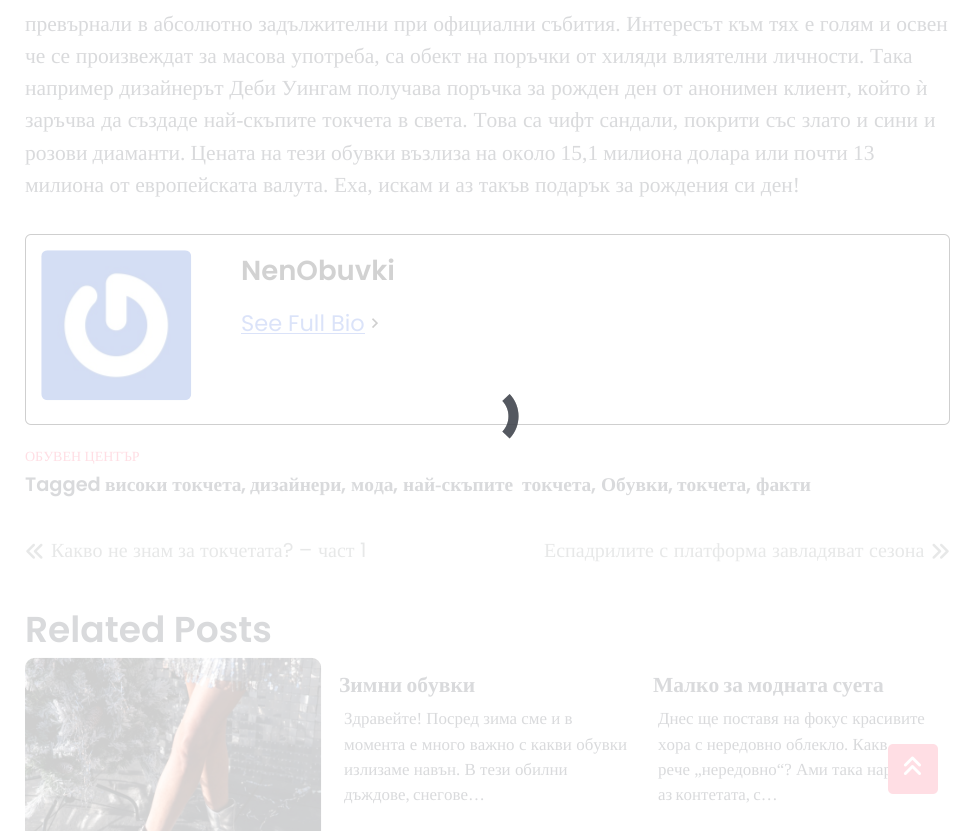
#include <cairo/cairo.h>
#include <math.h>
#include <stddef.h>

typedef struct { double x, y; const char *s; } line_t;
static cairo_t *cr;

static void rgb(unsigned color)
{
	cairo_set_source_rgb(cr, (color >> 16) / 255.0, (color >> 8 & 255) / 255.0, (color & 255) / 255.0);
}

static void tracked(double x, double y, const char *s, double letter, double word)
{
	cairo_move_to(cr, x, y);
	while (*s) {
		char ch[5] = {0};
		int n = 0;
		do ch[n++] = *s++; while ((*s & 0xC0) == 0x80);
		cairo_show_text(cr, ch);
		cairo_rel_move_to(cr, letter + word * (*ch == ' '), 0);
	}
}

static void rrect(double x, double y, double w, double h, double r)
{
	cairo_new_sub_path(cr);
	cairo_arc(cr, x + w - r, y + h - r, r, 0, M_PI / 2);
	cairo_arc(cr, x + r, y + h - r, r, M_PI / 2, M_PI);
	cairo_arc(cr, x + r, y + r, r, M_PI, 1.5 * M_PI);
	cairo_arc(cr, x + w - r, y + r, r, 1.5 * M_PI, 2 * M_PI);
	cairo_close_path(cr);
}

static void image(const char *path, double x, double y, double w, double h)
{
	cairo_surface_t *image = cairo_image_surface_create_from_png(path);
	cairo_save(cr);
	cairo_set_source_surface(cr, image, x, y);
	cairo_rectangle(cr, x, y, w, h);
	cairo_fill(cr);
	cairo_restore(cr);
	cairo_surface_destroy(image);
}

int main(void) {
	cairo_surface_t *surface = cairo_image_surface_create(CAIRO_FORMAT_RGB24, 975, 831);
	cr = cairo_create(surface);
	cairo_font_options_t *options = cairo_font_options_create();
	cairo_font_options_set_hint_metrics(options, CAIRO_HINT_METRICS_OFF);
	cairo_font_options_set_hint_style(options, CAIRO_HINT_STYLE_NONE);
	cairo_set_font_options(cr, options);
	cairo_set_miter_limit(cr, 4);
	rgb(0xffffff);
	cairo_paint(cr);
	rrect(25.5, 234.5, 924, 190, 5.5);
	rgb(0xcfcfcf);
	cairo_set_line_width(cr, 1);
	cairo_stroke(cr);
	image("img/1.png", 41, 250, 151, 151);
	rgb(0xdbe3f9);
	cairo_rectangle(cr, 241, 333, 124, 1);
	cairo_fill(cr);
	image("img/2.png", 372, 318, 6, 10);
	image("img/3.png", 26, 543, 17, 16);
	image("img/4.png", 932, 543, 17, 16);
	image("img/5.png", 25, 657, 297, 174);
	cairo_new_path(cr);
	cairo_move_to(cr, 506, 397.5);
	cairo_curve_to(cr, 516, 408, 516, 424.5, 506, 435);
	cairo_set_source_rgba(cr, 0.224, 0.243, 0.275, 0.48);
	cairo_set_line_width(cr, 10);
	cairo_stroke(cr);
	cairo_new_path(cr);
	cairo_move_to(cr, 506, 397.5);
	cairo_curve_to(cr, 516, 408, 516, 424.5, 506, 435);
	cairo_stroke(cr);
	cairo_new_path(cr);
	cairo_move_to(cr, 506, 397.5);
	cairo_curve_to(cr, 516, 408, 516, 424.5, 506, 435);
	cairo_stroke(cr);
	cairo_select_font_face(cr, "Liberation Serif", CAIRO_FONT_SLANT_NORMAL, CAIRO_FONT_WEIGHT_NORMAL);
	cairo_set_font_size(cr, 21.5);
	rgb(0xd9dadc);
	{
		static const line_t items[] = {
			{25, 31, "превърнали в абсолютно задължителни при официални събития. Интересът към тях е голям и освен"},
			{25, 63, "че се произвеждат за масова употреба, са обект на поръчки от хиляди влиятелни личности. Така"},
			{25, 95, "например дизайнерът Деби Уингам получава поръчка за рожден ден от анонимен клиент, който ѝ"},
		};
		for (size_t i = 0; i < sizeof items / sizeof *items; i++) {
			tracked(items[i].x, items[i].y, items[i].s, 0, 0.25);
		}
	}
	tracked(25, 127, "заръчва да създаде най-скъпите токчета в света. Това са чифт сандали, покрити със злато и сини и", 0, 0.5);
	tracked(25, 160, "розови диаманти. Цената на тези обувки възлиза на около 15,1 милиона долара или почти 13", 0, -0.25);
	tracked(25, 192, "милиона от европейската валута. Еха, искам и аз такъв подарък за рождения си ден!", 0, 0.1);
	cairo_select_font_face(cr, "Poppins SemiBold", CAIRO_FONT_SLANT_NORMAL, CAIRO_FONT_WEIGHT_NORMAL);
	cairo_set_font_size(cr, 27.5);
	rgb(0xd2d2d2);
	cairo_move_to(cr, 241, 280);
	cairo_show_text(cr, "NenObuvki");
	cairo_select_font_face(cr, "Poppins", CAIRO_FONT_SLANT_NORMAL, CAIRO_FONT_WEIGHT_NORMAL);
	cairo_set_font_size(cr, 22.5);
	rgb(0xdbe3f9);
	cairo_move_to(cr, 241, 331);
	cairo_show_text(cr, "See Full Bio");
	cairo_select_font_face(cr, "Liberation Serif", CAIRO_FONT_SLANT_NORMAL, CAIRO_FONT_WEIGHT_NORMAL);
	cairo_set_font_size(cr, 14);
	rgb(0xffdee4);
	cairo_move_to(cr, 25, 461);
	cairo_show_text(cr, "ОБУВЕН ЦЕНТЪР");
	cairo_select_font_face(cr, "Poppins SemiBold", CAIRO_FONT_SLANT_NORMAL, CAIRO_FONT_WEIGHT_NORMAL);
	cairo_set_font_size(cr, 19.4);
	rgb(0xd9dadc);
	cairo_move_to(cr, 25, 491);
	cairo_show_text(cr, "Tagged");
	cairo_select_font_face(cr, "Liberation Serif", CAIRO_FONT_SLANT_NORMAL, CAIRO_FONT_WEIGHT_BOLD);
	cairo_move_to(cr, 105, 491);
	cairo_show_text(cr, "високи токчета");
	cairo_select_font_face(cr, "Poppins SemiBold", CAIRO_FONT_SLANT_NORMAL, CAIRO_FONT_WEIGHT_NORMAL);
	cairo_move_to(cr, 241, 491);
	cairo_show_text(cr, ",");
	cairo_select_font_face(cr, "Liberation Serif", CAIRO_FONT_SLANT_NORMAL, CAIRO_FONT_WEIGHT_BOLD);
	cairo_move_to(cr, 250, 491);
	cairo_show_text(cr, "дизайнери");
	cairo_select_font_face(cr, "Poppins SemiBold", CAIRO_FONT_SLANT_NORMAL, CAIRO_FONT_WEIGHT_NORMAL);
	cairo_move_to(cr, 341, 491);
	cairo_show_text(cr, ",");
	cairo_select_font_face(cr, "Liberation Serif", CAIRO_FONT_SLANT_NORMAL, CAIRO_FONT_WEIGHT_BOLD);
	cairo_move_to(cr, 351, 491);
	cairo_show_text(cr, "мода");
	cairo_select_font_face(cr, "Poppins SemiBold", CAIRO_FONT_SLANT_NORMAL, CAIRO_FONT_WEIGHT_NORMAL);
	cairo_move_to(cr, 393, 491);
	cairo_show_text(cr, ",");
	cairo_select_font_face(cr, "Liberation Serif", CAIRO_FONT_SLANT_NORMAL, CAIRO_FONT_WEIGHT_BOLD);
	tracked(403, 491, "най-скъпите токчета", 0, 4);
	cairo_select_font_face(cr, "Poppins SemiBold", CAIRO_FONT_SLANT_NORMAL, CAIRO_FONT_WEIGHT_NORMAL);
	cairo_move_to(cr, 591, 491);
	cairo_show_text(cr, ",");
	cairo_select_font_face(cr, "Liberation Serif", CAIRO_FONT_SLANT_NORMAL, CAIRO_FONT_WEIGHT_BOLD);
	cairo_move_to(cr, 601, 491);
	cairo_show_text(cr, "Обувки");
	cairo_select_font_face(cr, "Poppins SemiBold", CAIRO_FONT_SLANT_NORMAL, CAIRO_FONT_WEIGHT_NORMAL);
	cairo_move_to(cr, 668, 491);
	cairo_show_text(cr, ",");
	cairo_select_font_face(cr, "Liberation Serif", CAIRO_FONT_SLANT_NORMAL, CAIRO_FONT_WEIGHT_BOLD);
	cairo_move_to(cr, 677, 491);
	cairo_show_text(cr, "токчета");
	cairo_select_font_face(cr, "Poppins SemiBold", CAIRO_FONT_SLANT_NORMAL, CAIRO_FONT_WEIGHT_NORMAL);
	cairo_move_to(cr, 746, 491);
	cairo_show_text(cr, ",");
	cairo_select_font_face(cr, "Liberation Serif", CAIRO_FONT_SLANT_NORMAL, CAIRO_FONT_WEIGHT_BOLD);
	cairo_move_to(cr, 756, 491);
	cairo_show_text(cr, "факти");
	cairo_select_font_face(cr, "Liberation Serif", CAIRO_FONT_SLANT_NORMAL, CAIRO_FONT_WEIGHT_NORMAL);
	cairo_set_font_size(cr, 20);
	rgb(0xe7e8e8);
	{
		static const line_t items[] = {
			{51, 557, "Какво"},
			{108, 557, "не"},
			{133, 557, "знам"},
			{178, 557, "за"},
			{200, 557, "токчетата"},
		};
		for (size_t i = 0; i < sizeof items / sizeof *items; i++) {
			cairo_move_to(cr, items[i].x, items[i].y);
			cairo_show_text(cr, items[i].s);
		}
	}
	cairo_select_font_face(cr, "Poppins", CAIRO_FONT_SLANT_NORMAL, CAIRO_FONT_WEIGHT_NORMAL);
	cairo_move_to(cr, 283, 557);
	cairo_show_text(cr, "? –");
	cairo_select_font_face(cr, "Liberation Serif", CAIRO_FONT_SLANT_NORMAL, CAIRO_FONT_WEIGHT_NORMAL);
	cairo_move_to(cr, 318, 557);
	cairo_show_text(cr, "част");
	cairo_select_font_face(cr, "Poppins", CAIRO_FONT_SLANT_NORMAL, CAIRO_FONT_WEIGHT_NORMAL);
	cairo_move_to(cr, 360, 557);
	cairo_show_text(cr, "1");
	cairo_select_font_face(cr, "Liberation Serif", CAIRO_FONT_SLANT_NORMAL, CAIRO_FONT_WEIGHT_NORMAL);
	tracked(544, 557, "Еспадрилите с платформа завладяват сезона", 0, 0.5);
	cairo_select_font_face(cr, "Poppins SemiBold", CAIRO_FONT_SLANT_NORMAL, CAIRO_FONT_WEIGHT_NORMAL);
	cairo_set_font_size(cr, 36);
	rgb(0xd9dadc);
	cairo_move_to(cr, 25, 642);
	cairo_show_text(cr, "Related Posts");
	cairo_select_font_face(cr, "Liberation Serif", CAIRO_FONT_SLANT_NORMAL, CAIRO_FONT_WEIGHT_BOLD);
	cairo_set_font_size(cr, 21.5);
	tracked(339, 692, "Зимни обувки", 0, -1);
	cairo_select_font_face(cr, "Liberation Serif", CAIRO_FONT_SLANT_NORMAL, CAIRO_FONT_WEIGHT_NORMAL);
	cairo_set_font_size(cr, 16.9);
	cairo_move_to(cr, 344, 724);
	cairo_show_text(cr, "Здравейте! Посред зима сме и в");
	tracked(344, 750, "момента е много важно с какви обувки", 0, 0.25);
	cairo_move_to(cr, 344, 775);
	cairo_show_text(cr, "излизаме навън. В тези обилни");
	tracked(344, 800, "дъждове, снегове…", 0, -1);
	cairo_select_font_face(cr, "Liberation Serif", CAIRO_FONT_SLANT_NORMAL, CAIRO_FONT_WEIGHT_BOLD);
	cairo_set_font_size(cr, 21.5);
	tracked(653, 692, "Малко за модната суета", 0, -1);
	cairo_select_font_face(cr, "Liberation Serif", CAIRO_FONT_SLANT_NORMAL, CAIRO_FONT_WEIGHT_NORMAL);
	cairo_set_font_size(cr, 16.9);
	tracked(658, 724, "Днес ще поставя на фокус красивите", 0, 0.25);
	cairo_move_to(cr, 658, 750);
	cairo_show_text(cr, "хора с нередовно облекло. Какв");
	cairo_move_to(cr, 658, 775);
	cairo_show_text(cr, "рече „нередовно“? Ами така нар");
	tracked(658, 800, "аз контетата, с…", 0, -1);
	rgb(0xffdee4);
	rrect(888, 744, 50, 50, 5);
	cairo_fill(cr);
	image("img/6.png", 903, 756, 18, 19);
	cairo_surface_write_to_png(surface, "page.png");
	cairo_font_options_destroy(options);
	cairo_destroy(cr);
	cairo_surface_destroy(surface);
	return 0;
}
